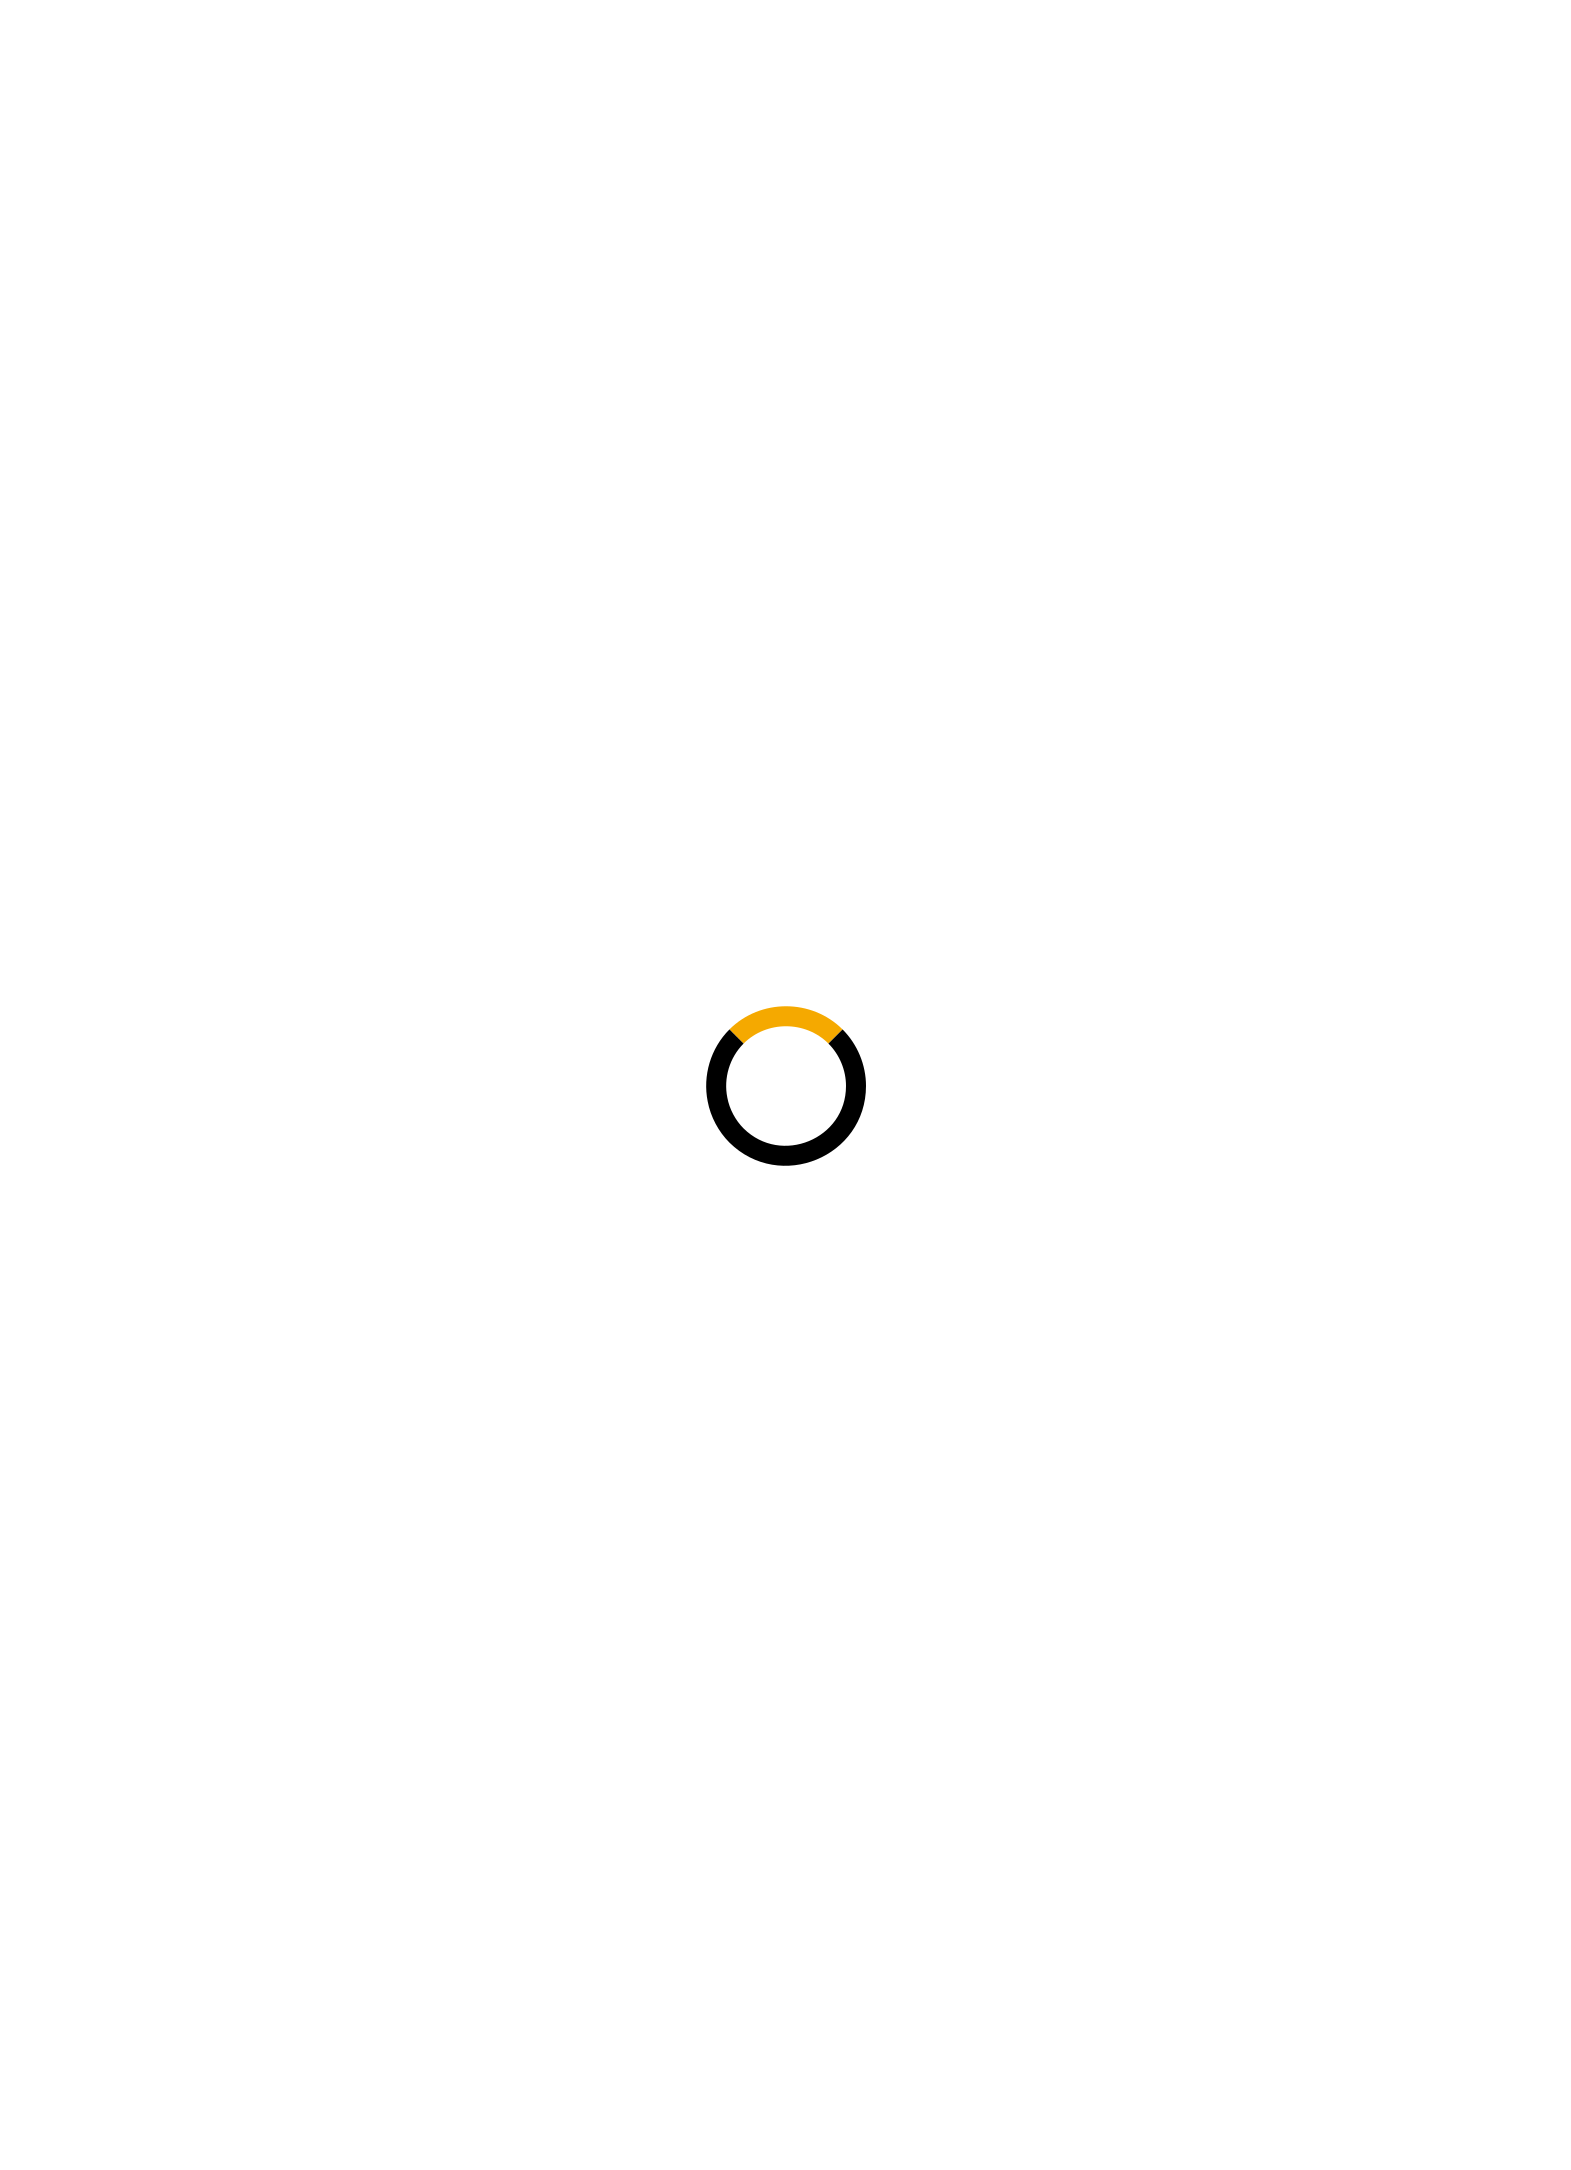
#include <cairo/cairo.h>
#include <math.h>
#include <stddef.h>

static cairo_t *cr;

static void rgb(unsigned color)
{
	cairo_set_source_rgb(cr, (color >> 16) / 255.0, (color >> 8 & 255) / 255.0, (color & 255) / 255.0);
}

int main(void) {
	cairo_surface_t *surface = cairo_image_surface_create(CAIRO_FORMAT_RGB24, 1571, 2170);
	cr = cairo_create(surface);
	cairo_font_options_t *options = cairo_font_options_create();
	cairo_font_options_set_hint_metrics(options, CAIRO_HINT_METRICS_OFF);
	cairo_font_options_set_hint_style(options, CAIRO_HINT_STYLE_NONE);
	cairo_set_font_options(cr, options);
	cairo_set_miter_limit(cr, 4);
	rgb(0xffffff);
	cairo_paint(cr);
	cairo_new_path(cr);
	cairo_move_to(cr, 736.5, 1036.5);
	cairo_curve_to(cr, 763.5, 1009.5, 808.5, 1009.5, 835.5, 1036.5);
	rgb(0xf5a900);
	cairo_set_line_width(cr, 20);
	cairo_stroke(cr);
	cairo_new_path(cr);
	cairo_move_to(cr, 835.5, 1036.5);
	cairo_curve_to(cr, 848.5, 1049.5, 856, 1067.5, 856, 1086);
	cairo_curve_to(cr, 856, 1148, 780.5, 1179, 736.5, 1135.5);
	cairo_curve_to(cr, 727, 1126, 720, 1113, 717.5, 1099.5);
	cairo_curve_to(cr, 713, 1077, 720, 1053, 736.5, 1036.5);
	rgb(0x000000);
	cairo_stroke(cr);
	cairo_surface_write_to_png(surface, "page.png");
	cairo_font_options_destroy(options);
	cairo_destroy(cr);
	cairo_surface_destroy(surface);
	return 0;
}
